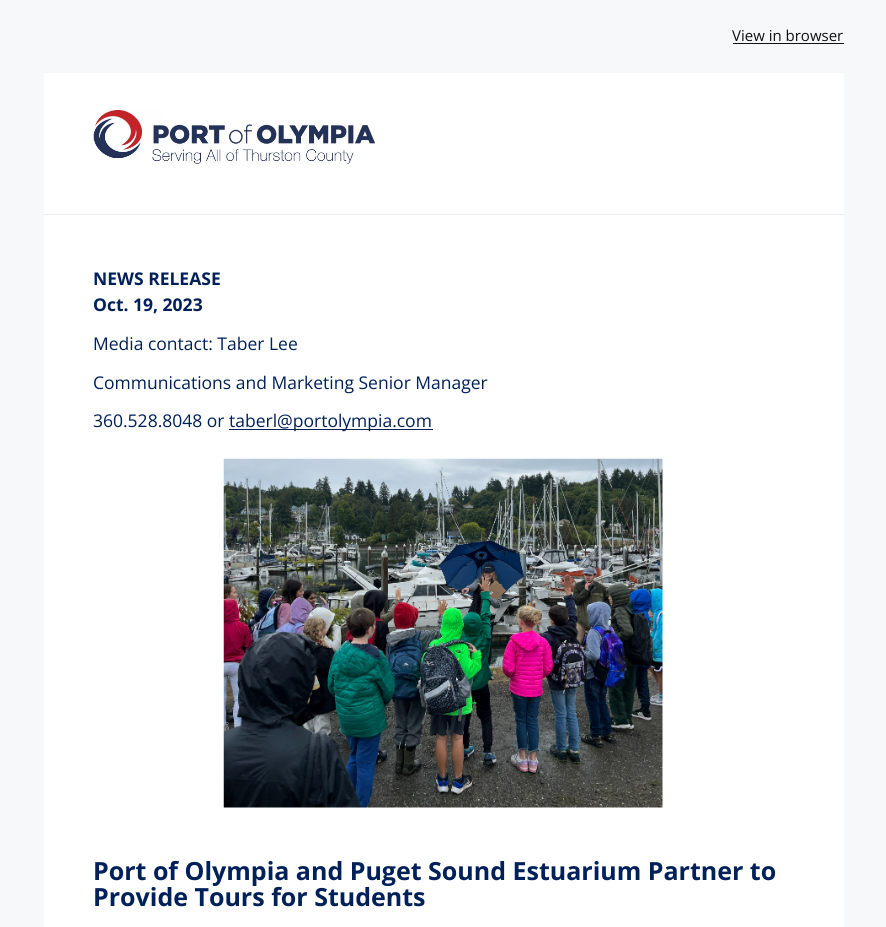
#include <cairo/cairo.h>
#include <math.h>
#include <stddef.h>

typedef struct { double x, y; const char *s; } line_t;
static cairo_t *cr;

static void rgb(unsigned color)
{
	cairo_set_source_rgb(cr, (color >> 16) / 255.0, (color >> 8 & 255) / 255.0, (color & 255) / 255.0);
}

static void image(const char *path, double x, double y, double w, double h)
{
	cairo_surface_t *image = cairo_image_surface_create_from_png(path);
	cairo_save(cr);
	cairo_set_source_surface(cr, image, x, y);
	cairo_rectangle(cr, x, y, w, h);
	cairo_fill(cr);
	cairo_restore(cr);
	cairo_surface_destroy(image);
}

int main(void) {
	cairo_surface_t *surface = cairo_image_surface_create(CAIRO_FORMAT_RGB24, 886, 927);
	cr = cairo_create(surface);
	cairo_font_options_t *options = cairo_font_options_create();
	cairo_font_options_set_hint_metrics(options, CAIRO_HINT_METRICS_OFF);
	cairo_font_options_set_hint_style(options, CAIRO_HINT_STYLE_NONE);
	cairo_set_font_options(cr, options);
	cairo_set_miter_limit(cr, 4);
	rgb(0xf6f8f9);
	cairo_paint(cr);
	rgb(0x111111);
	cairo_rectangle(cr, 733, 43, 111, 1);
	cairo_fill(cr);
	rgb(0xffffff);
	cairo_rectangle(cr, 44, 73, 800, 854);
	cairo_fill(cr);
	image("img/1.png", 93, 110, 282, 54);
	rgb(0xededf3);
	cairo_rectangle(cr, 44, 214, 800, 1);
	cairo_fill(cr);
	rgb(0x002059);
	cairo_rectangle(cr, 229, 429, 204, 1);
	cairo_fill(cr);
	image("img/2.png", 223, 458, 440, 350);
	cairo_select_font_face(cr, "Open Sans", CAIRO_FONT_SLANT_NORMAL, CAIRO_FONT_WEIGHT_NORMAL);
	cairo_set_font_size(cr, 15);
	rgb(0x111111);
	cairo_move_to(cr, 732, 41);
	cairo_show_text(cr, "View in browser");
	cairo_select_font_face(cr, "Open Sans", CAIRO_FONT_SLANT_NORMAL, CAIRO_FONT_WEIGHT_BOLD);
	cairo_set_font_size(cr, 17.5);
	rgb(0x002059);
	cairo_move_to(cr, 93, 285);
	cairo_show_text(cr, "NEWS RELEASE");
	cairo_move_to(cr, 93, 311);
	cairo_show_text(cr, "Oct. 19, 2023");
	cairo_select_font_face(cr, "Open Sans", CAIRO_FONT_SLANT_NORMAL, CAIRO_FONT_WEIGHT_NORMAL);
	{
		static const line_t items[] = {
			{93, 350, "Media contact: Taber Lee"},
			{93, 389, "Communications and Marketing Senior Manager"},
			{93, 427, "360.528.8048 or"},
			{229, 427, "taberl@portolympia.com"},
		};
		for (size_t i = 0; i < sizeof items / sizeof *items; i++) {
			cairo_move_to(cr, items[i].x, items[i].y);
			cairo_show_text(cr, items[i].s);
		}
	}
	cairo_select_font_face(cr, "Open Sans", CAIRO_FONT_SLANT_NORMAL, CAIRO_FONT_WEIGHT_BOLD);
	cairo_set_font_size(cr, 25);
	cairo_move_to(cr, 93, 880);
	cairo_show_text(cr, "Port of Olympia and Puget Sound Estuarium Partner to");
	cairo_move_to(cr, 93, 906);
	cairo_show_text(cr, "Provide Tours for Students");
	cairo_surface_write_to_png(surface, "page.png");
	cairo_font_options_destroy(options);
	cairo_destroy(cr);
	cairo_surface_destroy(surface);
	return 0;
}
